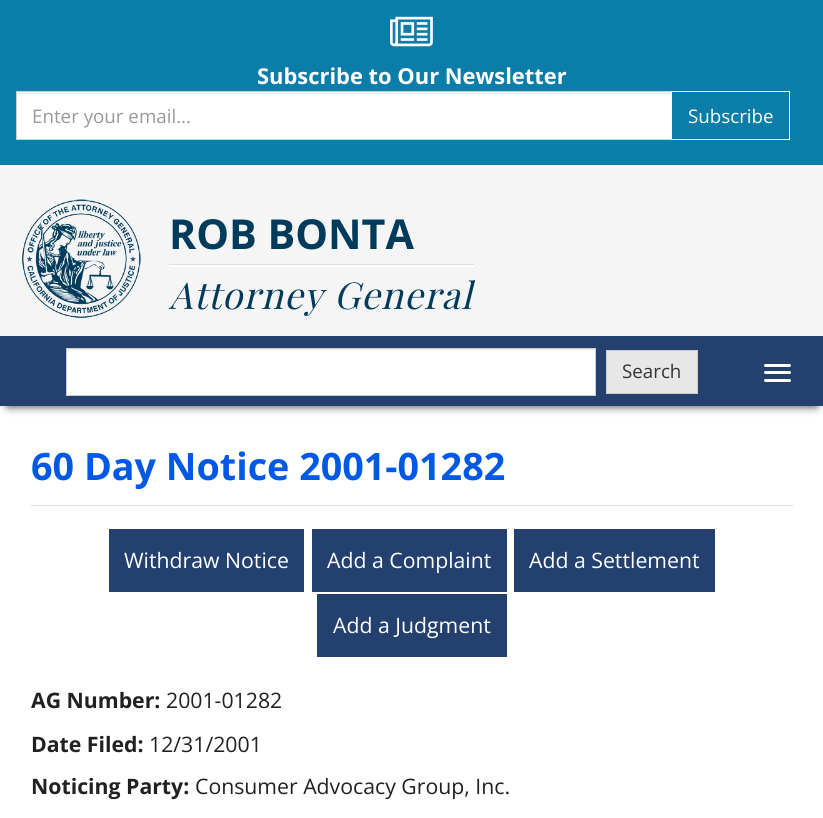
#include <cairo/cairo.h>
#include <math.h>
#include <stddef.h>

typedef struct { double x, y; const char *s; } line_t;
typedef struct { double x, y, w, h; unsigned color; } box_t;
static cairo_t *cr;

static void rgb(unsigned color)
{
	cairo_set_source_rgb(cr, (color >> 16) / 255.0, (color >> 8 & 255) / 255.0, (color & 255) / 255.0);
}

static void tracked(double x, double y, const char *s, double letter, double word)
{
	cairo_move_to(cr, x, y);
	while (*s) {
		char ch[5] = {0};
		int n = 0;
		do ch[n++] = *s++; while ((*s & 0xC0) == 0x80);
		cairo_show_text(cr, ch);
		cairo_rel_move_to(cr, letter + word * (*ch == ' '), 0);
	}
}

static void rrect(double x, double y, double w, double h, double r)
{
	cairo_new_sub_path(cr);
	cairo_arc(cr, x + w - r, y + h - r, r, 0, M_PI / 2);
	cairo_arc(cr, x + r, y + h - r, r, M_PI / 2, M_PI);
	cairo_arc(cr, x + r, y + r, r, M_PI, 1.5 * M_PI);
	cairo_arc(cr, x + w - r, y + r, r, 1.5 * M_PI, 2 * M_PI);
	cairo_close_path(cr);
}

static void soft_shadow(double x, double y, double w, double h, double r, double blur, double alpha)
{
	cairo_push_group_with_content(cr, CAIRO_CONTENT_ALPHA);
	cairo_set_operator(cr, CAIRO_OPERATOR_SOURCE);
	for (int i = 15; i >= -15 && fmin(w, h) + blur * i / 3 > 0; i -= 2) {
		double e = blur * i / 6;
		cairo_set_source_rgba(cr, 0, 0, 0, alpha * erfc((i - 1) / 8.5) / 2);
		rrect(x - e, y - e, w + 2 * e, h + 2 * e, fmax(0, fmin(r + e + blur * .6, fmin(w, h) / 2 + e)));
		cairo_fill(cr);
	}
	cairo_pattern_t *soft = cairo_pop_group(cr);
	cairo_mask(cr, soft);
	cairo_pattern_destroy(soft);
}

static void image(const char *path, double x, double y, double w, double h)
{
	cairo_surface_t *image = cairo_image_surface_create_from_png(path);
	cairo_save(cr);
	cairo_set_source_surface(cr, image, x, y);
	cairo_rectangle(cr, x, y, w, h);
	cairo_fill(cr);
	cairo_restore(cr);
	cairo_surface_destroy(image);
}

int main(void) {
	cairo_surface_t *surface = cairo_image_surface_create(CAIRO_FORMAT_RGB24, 823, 818);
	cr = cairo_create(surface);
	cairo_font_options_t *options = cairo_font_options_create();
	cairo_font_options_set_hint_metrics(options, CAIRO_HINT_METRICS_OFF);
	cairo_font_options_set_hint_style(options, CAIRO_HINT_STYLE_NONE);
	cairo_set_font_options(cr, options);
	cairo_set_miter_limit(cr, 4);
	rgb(0xffffff);
	cairo_paint(cr);
	rgb(0xf5f5f5);
	cairo_rectangle(cr, 0, 168, 823, 168);
	cairo_fill(cr);
	rgb(0x0b7da9);
	cairo_rectangle(cr, 0, 0, 823, 165);
	cairo_fill(cr);
	image("img/1.png", 390, 16, 43, 31);
	rgb(0xffffff);
	cairo_rectangle(cr, 17, 92, 654, 47);
	cairo_fill(cr);
	rgb(0xececec);
	cairo_rectangle(cr, 18, 93, 653, 1);
	cairo_fill(cr);
	cairo_rectangle(cr, 16.5, 91.5, 656, 48);
	rgb(0xcccccc);
	cairo_set_line_width(cr, 1);
	cairo_stroke(cr);
	rgb(0x0b7da9);
	cairo_rectangle(cr, 672, 92, 1, 47);
	cairo_fill(cr);
	cairo_rectangle(cr, 671.5, 91.5, 118, 48);
	rgb(0xffffff);
	cairo_stroke(cr);
	image("img/2.png", 22, 199, 119, 119);
	cairo_new_path(cr);
	cairo_move_to(cr, 169, 265);
	cairo_line_to(cr, 169, 267);
	cairo_line_to(cr, 474, 267);
	cairo_line_to(cr, 474, 264);
	cairo_line_to(cr, 474, 265);
	cairo_close_path(cr);
	cairo_fill(cr);
	rgb(0xdddddd);
	cairo_rectangle(cr, 169, 264, 305, 1);
	cairo_fill(cr);
	rgb(0x000000);
	soft_shadow(8, 350, 808, 55, 0, 5, 1);
	{
		static const box_t items[] = {
			{0, 336, 823, 70, 0x23406e},
			{67, 349, 528, 46, 0xffffff},
			{68, 349, 527, 1, 0xececec},
		};
		for (size_t i = 0; i < sizeof items / sizeof *items; i++) {
			rgb(items[i].color);
			cairo_rectangle(cr, items[i].x, items[i].y, items[i].w, items[i].h);
			cairo_fill(cr);
		}
	}
	cairo_rectangle(cr, 66.5, 348.5, 529, 47);
	rgb(0xcccccc);
	cairo_stroke(cr);
	rgb(0xe7e7e7);
	cairo_rectangle(cr, 606.5, 350.5, 91, 43);
	cairo_fill_preserve(cr);
	rgb(0xcccccc);
	cairo_stroke(cr);
	rgb(0xffffff);
	rrect(764, 364, 27, 3, 1.5);
	cairo_fill(cr);
	rrect(764, 371, 27, 3, 1.5);
	cairo_fill(cr);
	rrect(764, 379, 27, 3, 1.5);
	cairo_fill(cr);
	{
		static const box_t items[] = {
			{31, 505, 762, 1, 0xdddddd},
			{109, 529, 195, 63, 0x23406e},
			{312, 529, 195, 63, 0x23406e},
			{514, 529, 201, 63, 0x23406e},
			{317, 594, 190, 63, 0x23406e},
		};
		for (size_t i = 0; i < sizeof items / sizeof *items; i++) {
			rgb(items[i].color);
			cairo_rectangle(cr, items[i].x, items[i].y, items[i].w, items[i].h);
			cairo_fill(cr);
		}
	}
	cairo_select_font_face(cr, "Open Sans", CAIRO_FONT_SLANT_NORMAL, CAIRO_FONT_WEIGHT_BOLD);
	cairo_set_font_size(cr, 21.9);
	rgb(0xffffff);
	cairo_move_to(cr, 257, 84);
	cairo_show_text(cr, "Subscribe to Our Newsletter");
	cairo_select_font_face(cr, "Open Sans", CAIRO_FONT_SLANT_NORMAL, CAIRO_FONT_WEIGHT_NORMAL);
	cairo_set_font_size(cr, 18.75);
	rgb(0x999999);
	cairo_move_to(cr, 32, 123);
	cairo_show_text(cr, "Enter your email...");
	rgb(0xffffff);
	cairo_move_to(cr, 688, 123);
	cairo_show_text(cr, "Subscribe");
	cairo_select_font_face(cr, "Open Sans", CAIRO_FONT_SLANT_NORMAL, CAIRO_FONT_WEIGHT_BOLD);
	cairo_set_font_size(cr, 41.25);
	rgb(0x003b5c);
	cairo_move_to(cr, 169, 249);
	cairo_show_text(cr, "ROB BONTA");
	cairo_select_font_face(cr, "Playfair Display", CAIRO_FONT_SLANT_ITALIC, CAIRO_FONT_WEIGHT_NORMAL);
	cairo_set_font_size(cr, 37);
	tracked(169, 309, "Attorney General", 1.1, 0);
	cairo_select_font_face(cr, "Open Sans", CAIRO_FONT_SLANT_NORMAL, CAIRO_FONT_WEIGHT_NORMAL);
	cairo_set_font_size(cr, 18.75);
	rgb(0x333333);
	cairo_move_to(cr, 622, 378);
	cairo_show_text(cr, "Search");
	cairo_select_font_face(cr, "Open Sans", CAIRO_FONT_SLANT_NORMAL, CAIRO_FONT_WEIGHT_BOLD);
	cairo_set_font_size(cr, 37.7);
	rgb(0x0059e5);
	cairo_move_to(cr, 31, 480);
	cairo_show_text(cr, "60 Day Notice 2001-01282");
	cairo_select_font_face(cr, "Open Sans", CAIRO_FONT_SLANT_NORMAL, CAIRO_FONT_WEIGHT_NORMAL);
	cairo_set_font_size(cr, 21.25);
	rgb(0xffffff);
	{
		static const line_t items[] = {
			{124, 568, "Withdraw Notice"},
			{327, 568, "Add a Complaint"},
			{529, 568, "Add a Settlement"},
			{333, 633, "Add a Judgment"},
		};
		for (size_t i = 0; i < sizeof items / sizeof *items; i++) {
			cairo_move_to(cr, items[i].x, items[i].y);
			cairo_show_text(cr, items[i].s);
		}
	}
	cairo_select_font_face(cr, "Open Sans", CAIRO_FONT_SLANT_NORMAL, CAIRO_FONT_WEIGHT_BOLD);
	rgb(0x212121);
	cairo_move_to(cr, 31, 708);
	cairo_show_text(cr, "AG Number:");
	cairo_select_font_face(cr, "Open Sans", CAIRO_FONT_SLANT_NORMAL, CAIRO_FONT_WEIGHT_NORMAL);
	cairo_move_to(cr, 166, 708);
	cairo_show_text(cr, "2001-01282");
	cairo_select_font_face(cr, "Open Sans", CAIRO_FONT_SLANT_NORMAL, CAIRO_FONT_WEIGHT_BOLD);
	cairo_move_to(cr, 31, 752);
	cairo_show_text(cr, "Date Filed:");
	cairo_select_font_face(cr, "Open Sans", CAIRO_FONT_SLANT_NORMAL, CAIRO_FONT_WEIGHT_NORMAL);
	cairo_move_to(cr, 149, 752);
	cairo_show_text(cr, "12/31/2001");
	cairo_select_font_face(cr, "Open Sans", CAIRO_FONT_SLANT_NORMAL, CAIRO_FONT_WEIGHT_BOLD);
	cairo_move_to(cr, 31, 794);
	cairo_show_text(cr, "Noticing Party:");
	cairo_select_font_face(cr, "Open Sans", CAIRO_FONT_SLANT_NORMAL, CAIRO_FONT_WEIGHT_NORMAL);
	cairo_move_to(cr, 195, 794);
	cairo_show_text(cr, "Consumer Advocacy Group, Inc.");
	cairo_surface_write_to_png(surface, "page.png");
	cairo_font_options_destroy(options);
	cairo_destroy(cr);
	cairo_surface_destroy(surface);
	return 0;
}
